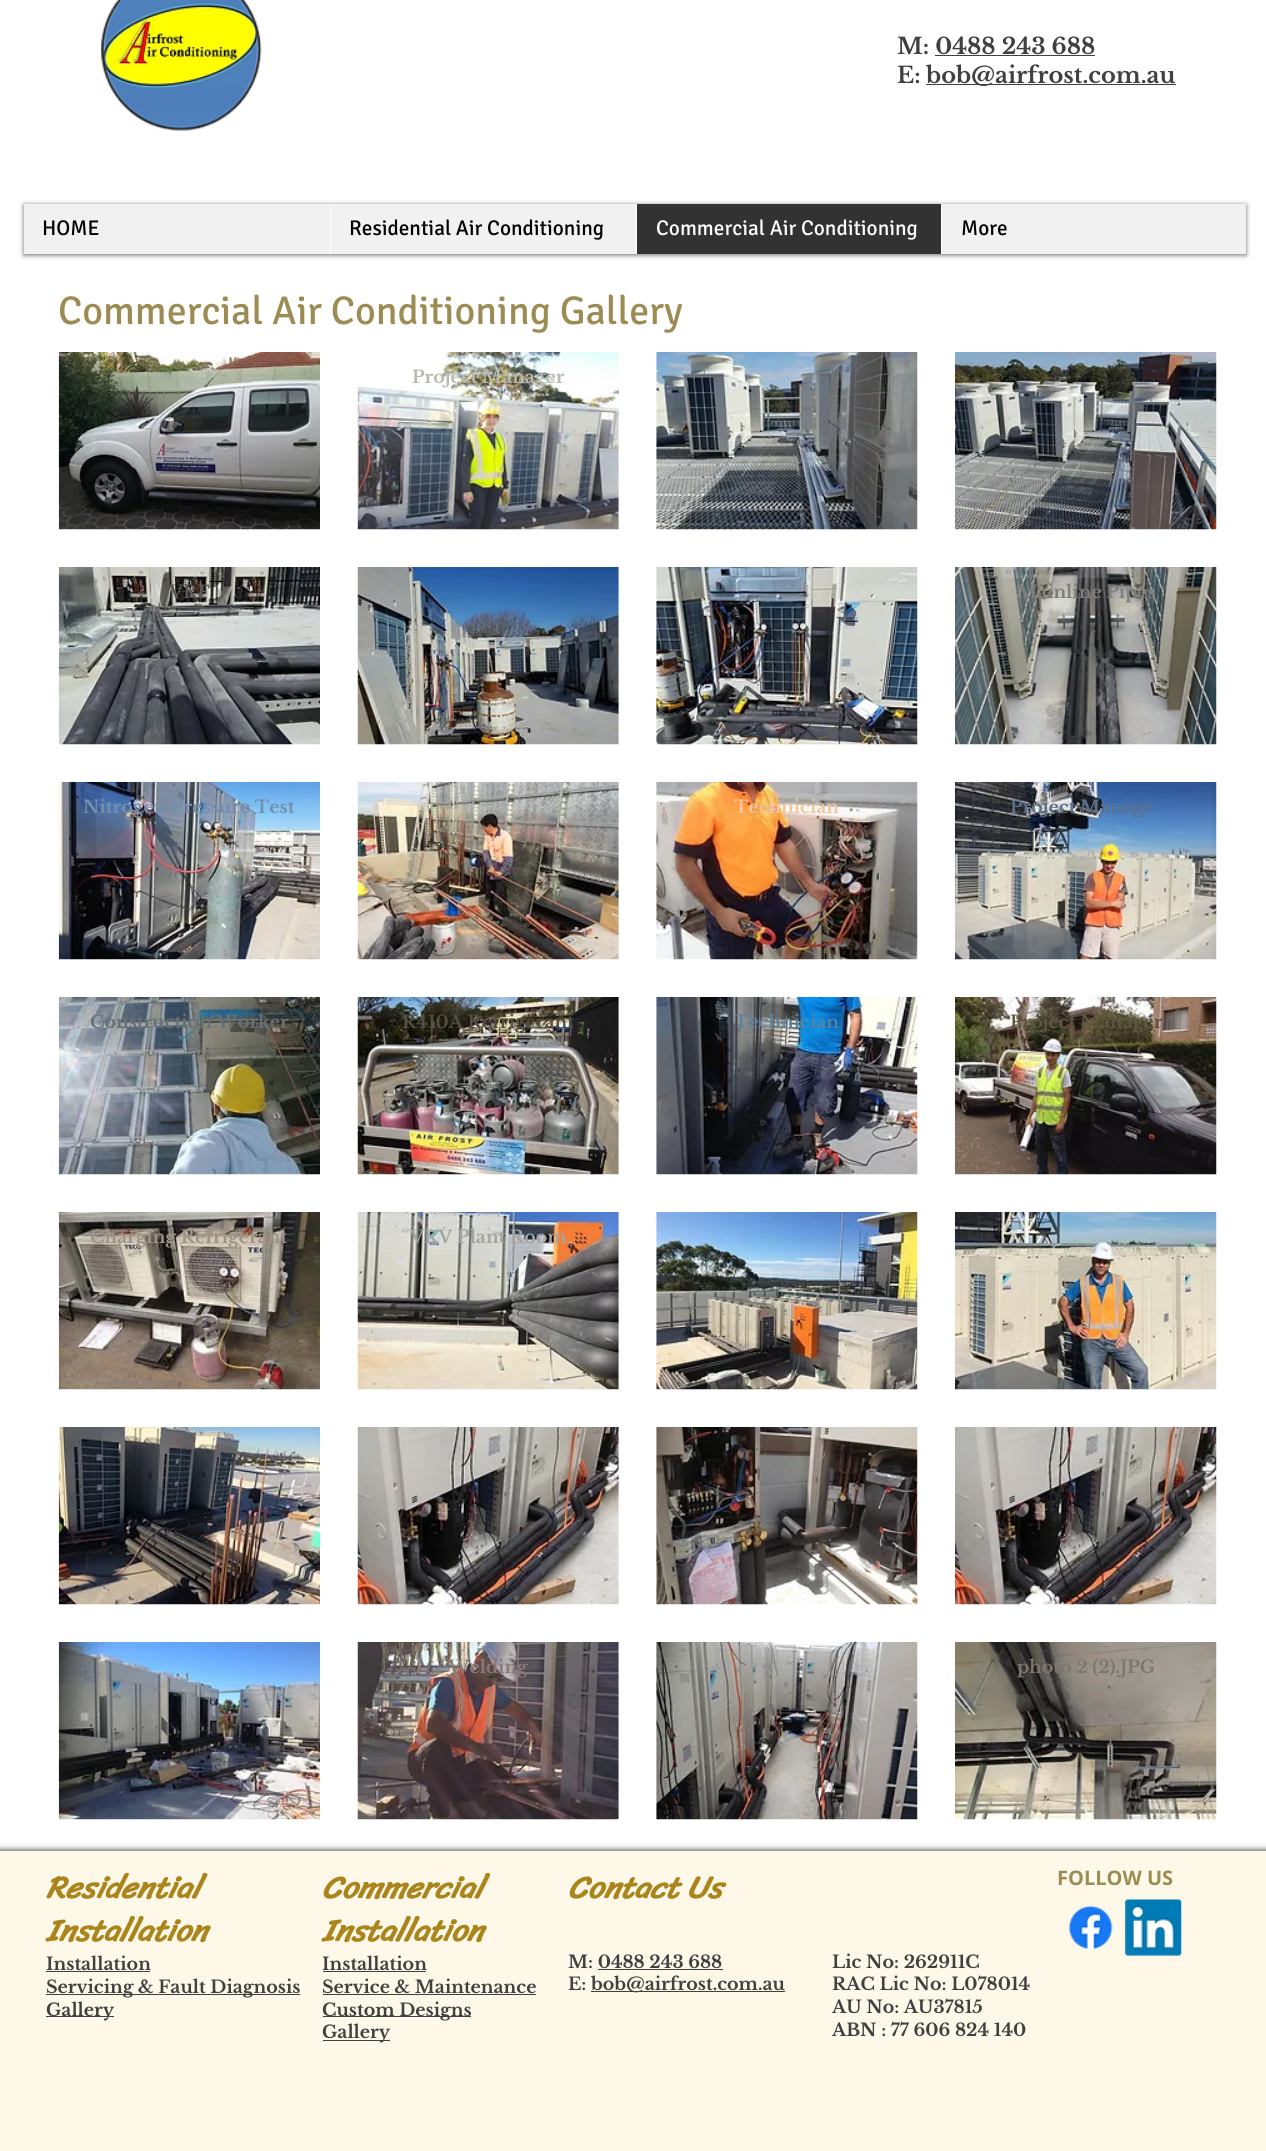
#include <cairo/cairo.h>
#include <math.h>
#include <stddef.h>

typedef struct { double x, y; const char *s; } line_t;
typedef struct { double x, y, w, h; unsigned color; } box_t;
static cairo_t *cr;

static void rgb(unsigned color)
{
	cairo_set_source_rgb(cr, (color >> 16) / 255.0, (color >> 8 & 255) / 255.0, (color & 255) / 255.0);
}

static void rrect(double x, double y, double w, double h, double r)
{
	cairo_new_sub_path(cr);
	cairo_arc(cr, x + w - r, y + h - r, r, 0, M_PI / 2);
	cairo_arc(cr, x + r, y + h - r, r, M_PI / 2, M_PI);
	cairo_arc(cr, x + r, y + r, r, M_PI, 1.5 * M_PI);
	cairo_arc(cr, x + w - r, y + r, r, 1.5 * M_PI, 2 * M_PI);
	cairo_close_path(cr);
}

static void soft_shadow(double x, double y, double w, double h, double r, double blur, double alpha)
{
	cairo_push_group_with_content(cr, CAIRO_CONTENT_ALPHA);
	cairo_set_operator(cr, CAIRO_OPERATOR_SOURCE);
	for (int i = 15; i >= -15 && fmin(w, h) + blur * i / 3 > 0; i -= 2) {
		double e = blur * i / 6;
		cairo_set_source_rgba(cr, 0, 0, 0, alpha * erfc((i - 1) / 8.5) / 2);
		rrect(x - e, y - e, w + 2 * e, h + 2 * e, fmax(0, fmin(r + e + blur * .6, fmin(w, h) / 2 + e)));
		cairo_fill(cr);
	}
	cairo_pattern_t *soft = cairo_pop_group(cr);
	cairo_mask(cr, soft);
	cairo_pattern_destroy(soft);
}

static void image(const char *path, double x, double y, double w, double h)
{
	cairo_surface_t *image = cairo_image_surface_create_from_png(path);
	cairo_save(cr);
	cairo_set_source_surface(cr, image, x, y);
	cairo_rectangle(cr, x, y, w, h);
	cairo_fill(cr);
	cairo_restore(cr);
	cairo_surface_destroy(image);
}

int main(void) {
	cairo_surface_t *surface = cairo_image_surface_create(CAIRO_FORMAT_RGB24, 1266, 2151);
	cr = cairo_create(surface);
	cairo_font_options_t *options = cairo_font_options_create();
	cairo_font_options_set_hint_metrics(options, CAIRO_HINT_METRICS_OFF);
	cairo_font_options_set_hint_style(options, CAIRO_HINT_STYLE_NONE);
	cairo_set_font_options(cr, options);
	cairo_set_miter_limit(cr, 4);
	rgb(0xffffff);
	cairo_paint(cr);
	image("img/1.png", 100, 0, 162, 131);
	rgb(0x404040);
	cairo_rectangle(cr, 935, 55, 160, 1);
	cairo_fill(cr);
	cairo_rectangle(cr, 926, 84, 250, 1);
	cairo_fill(cr);
	rgb(0x000000);
	soft_shadow(24, 205, 1222, 50, 0, 2.5, 0.6);
	{
		static const box_t items[] = {
			{24, 204, 1222, 50, 0xf1f1f1},
			{330, 204, 1, 50, 0xffffff},
			{637, 204, 304, 50, 0x323232},
			{636, 204, 1, 50, 0xffffff},
			{941, 204, 1, 50, 0xffffff},
		};
		for (size_t i = 0; i < sizeof items / sizeof *items; i++) {
			rgb(items[i].color);
			cairo_rectangle(cr, items[i].x, items[i].y, items[i].w, items[i].h);
			cairo_fill(cr);
		}
	}
	image("img/2.png", 58, 352, 262, 178);
	image("img/3.png", 357, 352, 262, 178);
	image("img/4.png", 656, 352, 262, 178);
	image("img/5.png", 955, 352, 262, 178);
	image("img/6.png", 58, 567, 262, 178);
	image("img/7.png", 357, 567, 262, 178);
	image("img/8.png", 656, 567, 262, 178);
	image("img/9.png", 955, 567, 262, 178);
	image("img/10.png", 58, 782, 262, 178);
	image("img/11.png", 357, 782, 262, 178);
	image("img/12.png", 656, 782, 262, 178);
	image("img/13.png", 955, 782, 262, 178);
	image("img/14.png", 58, 997, 262, 178);
	image("img/15.png", 357, 997, 262, 178);
	image("img/16.png", 656, 997, 262, 178);
	image("img/17.png", 955, 997, 262, 178);
	image("img/18.png", 58, 1212, 262, 178);
	image("img/19.png", 357, 1212, 262, 178);
	image("img/20.png", 656, 1212, 262, 178);
	image("img/21.png", 955, 1212, 262, 178);
	image("img/22.png", 58, 1427, 262, 178);
	image("img/23.png", 357, 1427, 262, 178);
	image("img/24.png", 656, 1427, 262, 178);
	image("img/25.png", 955, 1427, 262, 178);
	image("img/26.png", 58, 1642, 262, 178);
	image("img/27.png", 357, 1642, 262, 178);
	image("img/28.png", 656, 1642, 262, 178);
	image("img/29.png", 955, 1642, 262, 178);
	cairo_save(cr);
	cairo_set_fill_rule(cr, CAIRO_FILL_RULE_EVEN_ODD);
	cairo_new_path(cr);
	cairo_move_to(cr, 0, 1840);
	cairo_line_to(cr, 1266, 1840);
	cairo_line_to(cr, 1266, 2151);
	cairo_line_to(cr, 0, 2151);
	cairo_close_path(cr);
	cairo_move_to(cr, 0, 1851);
	cairo_line_to(cr, 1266, 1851);
	cairo_line_to(cr, 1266, 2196);
	cairo_line_to(cr, 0, 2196);
	cairo_close_path(cr);
	cairo_clip(cr);
	rgb(0x000000);
	soft_shadow(-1, 1850, 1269, 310, 0, 3, 0.7);
	cairo_restore(cr);
	cairo_set_source_rgba(cr, 0.976, 0.894, 0.682, 0.28);
	cairo_rectangle(cr, 0, 1851, 1266, 300);
	cairo_fill(cr);
	rgb(0x404040);
	cairo_rectangle(cr, 46, 1971, 104, 1);
	cairo_fill(cr);
	cairo_rectangle(cr, 46, 1994, 254, 1);
	cairo_fill(cr);
	cairo_rectangle(cr, 46, 2016, 68, 1);
	cairo_fill(cr);
	cairo_rectangle(cr, 323, 1971, 103, 1);
	cairo_fill(cr);
	cairo_rectangle(cr, 323, 1994, 213, 1);
	cairo_fill(cr);
	cairo_rectangle(cr, 323, 2016, 148, 1);
	cairo_fill(cr);
	cairo_rectangle(cr, 323, 2040, 67, 1);
	cairo_fill(cr);
	image("img/30.png", 1068, 1905, 45, 45);
	image("img/31.png", 1125, 1899, 57, 57);
	cairo_rectangle(cr, 598, 1969, 125, 1);
	cairo_fill(cr);
	cairo_rectangle(cr, 591, 1991, 194, 1);
	cairo_fill(cr);
	cairo_select_font_face(cr, "Libre Baskerville", CAIRO_FONT_SLANT_NORMAL, CAIRO_FONT_WEIGHT_BOLD);
	cairo_set_font_size(cr, 22.5);
	{
		static const line_t items[] = {
			{897, 54, "M: 0488 243 688"},
			{897, 83, "E:"},
			{926, 83, "bob@airfrost.com.au"},
		};
		for (size_t i = 0; i < sizeof items / sizeof *items; i++) {
			cairo_move_to(cr, items[i].x, items[i].y);
			cairo_show_text(cr, items[i].s);
		}
	}
	cairo_select_font_face(cr, "Signika", CAIRO_FONT_SLANT_NORMAL, CAIRO_FONT_WEIGHT_NORMAL);
	cairo_set_font_size(cr, 21.25);
	rgb(0x000000);
	cairo_move_to(cr, 42, 235);
	cairo_show_text(cr, "HOME");
	cairo_move_to(cr, 349, 235);
	cairo_show_text(cr, "Residential Air Conditioning");
	rgb(0xffffff);
	cairo_move_to(cr, 656, 235);
	cairo_show_text(cr, "Commercial Air Conditioning");
	rgb(0x000000);
	cairo_move_to(cr, 961, 235);
	cairo_show_text(cr, "More");
	cairo_set_font_size(cr, 40);
	rgb(0x9c8c54);
	cairo_move_to(cr, 58, 324);
	cairo_show_text(cr, "Commercial Air Conditioning Gallery");
	cairo_select_font_face(cr, "Libre Baskerville", CAIRO_FONT_SLANT_NORMAL, CAIRO_FONT_WEIGHT_BOLD);
	cairo_set_font_size(cr, 17.5);
	rgb(0xb9baae);
	cairo_move_to(cr, 412, 383);
	cairo_show_text(cr, "Project Manager");
	rgb(0x5c5854);
	cairo_move_to(cr, 169, 598);
	cairo_show_text(cr, "VRF");
	rgb(0x7e7f7c);
	cairo_move_to(cr, 1017, 598);
	cairo_show_text(cr, "Mainline Pipes");
	rgb(0x738eae);
	cairo_move_to(cr, 83, 813);
	cairo_show_text(cr, "Nitrogen Pressure Test");
	rgb(0xecc79f);
	cairo_move_to(cr, 734, 813);
	cairo_show_text(cr, "Technician");
	rgb(0x5b708d);
	cairo_move_to(cr, 1010, 813);
	cairo_show_text(cr, "Project Manage");
	rgb(0x687174);
	cairo_move_to(cr, 90, 1028);
	cairo_show_text(cr, "Construction Worker");
	rgb(0x544f42);
	cairo_move_to(cr, 402, 1028);
	cairo_show_text(cr, "R410A Refrigerant");
	rgb(0x5884a2);
	cairo_move_to(cr, 734, 1028);
	cairo_show_text(cr, "Technician");
	rgb(0x5e5542);
	cairo_move_to(cr, 1010, 1028);
	cairo_show_text(cr, "Project Manager");
	rgb(0x9d9487);
	cairo_move_to(cr, 90, 1243);
	cairo_show_text(cr, "Charging Refrigerant");
	rgb(0xa6a49f);
	cairo_move_to(cr, 410, 1243);
	cairo_show_text(cr, "VRV Plant Room");
	rgb(0x887a78);
	cairo_move_to(cr, 448, 1673);
	cairo_show_text(cr, "Welding");
	rgb(0x7d776f);
	cairo_move_to(cr, 1017, 1673);
	cairo_show_text(cr, "photo 2 (2).JPG");
	cairo_select_font_face(cr, "Sriracha", CAIRO_FONT_SLANT_ITALIC, CAIRO_FONT_WEIGHT_BOLD);
	cairo_set_font_size(cr, 31.25);
	rgb(0xac841c);
	cairo_move_to(cr, 46, 1898);
	cairo_show_text(cr, "Residential");
	cairo_move_to(cr, 46, 1941);
	cairo_show_text(cr, "Installation");
	cairo_select_font_face(cr, "Libre Baskerville", CAIRO_FONT_SLANT_NORMAL, CAIRO_FONT_WEIGHT_BOLD);
	cairo_set_font_size(cr, 17.5);
	rgb(0x404040);
	{
		static const line_t items[] = {
			{46, 1970, "Installation"},
			{46, 1993, "Servicing & Fault Diagnosis"},
			{46, 2016, "Gallery"},
		};
		for (size_t i = 0; i < sizeof items / sizeof *items; i++) {
			cairo_move_to(cr, items[i].x, items[i].y);
			cairo_show_text(cr, items[i].s);
		}
	}
	cairo_select_font_face(cr, "Sriracha", CAIRO_FONT_SLANT_ITALIC, CAIRO_FONT_WEIGHT_BOLD);
	cairo_set_font_size(cr, 31.25);
	rgb(0xac841c);
	cairo_move_to(cr, 322, 1898);
	cairo_show_text(cr, "Commercial");
	cairo_move_to(cr, 322, 1941);
	cairo_show_text(cr, "Installation");
	cairo_select_font_face(cr, "Libre Baskerville", CAIRO_FONT_SLANT_NORMAL, CAIRO_FONT_WEIGHT_BOLD);
	cairo_set_font_size(cr, 17.5);
	rgb(0x404040);
	{
		static const line_t items[] = {
			{322, 1970, "Installation"},
			{322, 1993, "Service & Maintenance"},
			{322, 2016, "Custom Designs"},
			{322, 2038, "Gallery"},
		};
		for (size_t i = 0; i < sizeof items / sizeof *items; i++) {
			cairo_move_to(cr, items[i].x, items[i].y);
			cairo_show_text(cr, items[i].s);
		}
	}
	cairo_select_font_face(cr, "Sriracha", CAIRO_FONT_SLANT_ITALIC, CAIRO_FONT_WEIGHT_BOLD);
	cairo_set_font_size(cr, 31.25);
	rgb(0xac841c);
	cairo_move_to(cr, 568, 1898);
	cairo_show_text(cr, "Contact Us");
	cairo_select_font_face(cr, "Open Sans", CAIRO_FONT_SLANT_NORMAL, CAIRO_FONT_WEIGHT_BOLD);
	cairo_set_font_size(cr, 20);
	rgb(0x9c8c54);
	cairo_move_to(cr, 1057, 1885);
	cairo_show_text(cr, "FOLLOW US");
	cairo_select_font_face(cr, "Libre Baskerville", CAIRO_FONT_SLANT_NORMAL, CAIRO_FONT_WEIGHT_BOLD);
	cairo_set_font_size(cr, 17.5);
	rgb(0x404040);
	{
		static const line_t items[] = {
			{568, 1968, "M: 0488 243 688"},
			{568, 1990, "E:"},
			{591, 1990, "bob@airfrost.com.au"},
			{832, 1968, "Lic No: 262911C"},
			{832, 1990, "RAC Lic No: L078014"},
			{832, 2013, "AU No: AU37815"},
			{832, 2036, "ABN : 77 606 824 140"},
		};
		for (size_t i = 0; i < sizeof items / sizeof *items; i++) {
			cairo_move_to(cr, items[i].x, items[i].y);
			cairo_show_text(cr, items[i].s);
		}
	}
	cairo_surface_write_to_png(surface, "page.png");
	cairo_font_options_destroy(options);
	cairo_destroy(cr);
	cairo_surface_destroy(surface);
	return 0;
}
